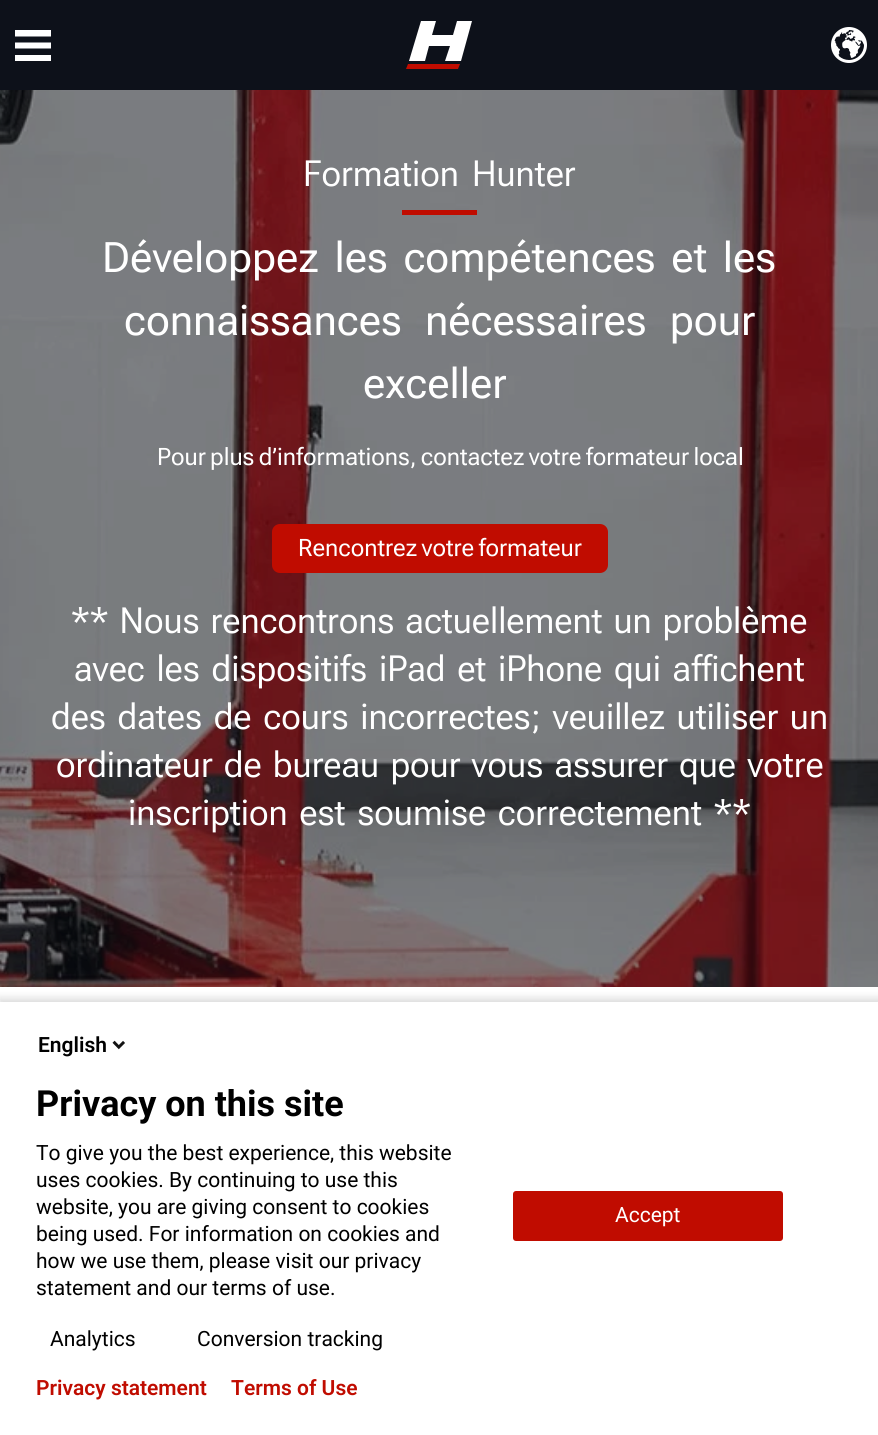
#include <cairo/cairo.h>
#include <math.h>
#include <stddef.h>

typedef struct { double x, y; const char *s; } line_t;
static cairo_t *cr;

static void rgb(unsigned color)
{
	cairo_set_source_rgb(cr, (color >> 16) / 255.0, (color >> 8 & 255) / 255.0, (color & 255) / 255.0);
}

static void tracked(double x, double y, const char *s, double letter, double word)
{
	cairo_move_to(cr, x, y);
	while (*s) {
		char ch[5] = {0};
		int n = 0;
		do ch[n++] = *s++; while ((*s & 0xC0) == 0x80);
		cairo_show_text(cr, ch);
		cairo_rel_move_to(cr, letter + word * (*ch == ' '), 0);
	}
}

static void rrect(double x, double y, double w, double h, double r)
{
	cairo_new_sub_path(cr);
	cairo_arc(cr, x + w - r, y + h - r, r, 0, M_PI / 2);
	cairo_arc(cr, x + r, y + h - r, r, M_PI / 2, M_PI);
	cairo_arc(cr, x + r, y + r, r, M_PI, 1.5 * M_PI);
	cairo_arc(cr, x + w - r, y + r, r, 1.5 * M_PI, 2 * M_PI);
	cairo_close_path(cr);
}

static void soft_shadow(double x, double y, double w, double h, double r, double blur, double alpha)
{
	cairo_push_group_with_content(cr, CAIRO_CONTENT_ALPHA);
	cairo_set_operator(cr, CAIRO_OPERATOR_SOURCE);
	for (int i = 15; i >= -15 && fmin(w, h) + blur * i / 3 > 0; i -= 2) {
		double e = blur * i / 6;
		cairo_set_source_rgba(cr, 0, 0, 0, alpha * erfc((i - 1) / 8.5) / 2);
		rrect(x - e, y - e, w + 2 * e, h + 2 * e, fmax(0, fmin(r + e + blur * .6, fmin(w, h) / 2 + e)));
		cairo_fill(cr);
	}
	cairo_pattern_t *soft = cairo_pop_group(cr);
	cairo_mask(cr, soft);
	cairo_pattern_destroy(soft);
}

static void image(const char *path, double x, double y, double w, double h)
{
	cairo_surface_t *image = cairo_image_surface_create_from_png(path);
	cairo_save(cr);
	cairo_set_source_surface(cr, image, x, y);
	cairo_rectangle(cr, x, y, w, h);
	cairo_fill(cr);
	cairo_restore(cr);
	cairo_surface_destroy(image);
}

int main(void) {
	cairo_surface_t *surface = cairo_image_surface_create(CAIRO_FORMAT_RGB24, 878, 1435);
	cr = cairo_create(surface);
	cairo_font_options_t *options = cairo_font_options_create();
	cairo_font_options_set_hint_metrics(options, CAIRO_HINT_METRICS_OFF);
	cairo_font_options_set_hint_style(options, CAIRO_HINT_STYLE_NONE);
	cairo_set_font_options(cr, options);
	cairo_set_miter_limit(cr, 4);
	rgb(0xffffff);
	cairo_paint(cr);
	rgb(0x0d111a);
	cairo_rectangle(cr, 0, 0, 878, 90);
	cairo_fill(cr);
	cairo_save(cr);
	cairo_rectangle(cr, 15, 27, 36, 36);
	cairo_clip(cr);
	rgb(0xffffff);
	cairo_new_path(cr);
	cairo_move_to(cr, 52, 36.5);
	cairo_line_to(cr, 15, 36.5);
	cairo_line_to(cr, 15, 30);
	cairo_line_to(cr, 52, 30);
	cairo_close_path(cr);
	cairo_move_to(cr, 52, 42.5);
	cairo_line_to(cr, 15, 42.5);
	cairo_line_to(cr, 15, 48.5);
	cairo_line_to(cr, 52, 48.5);
	cairo_close_path(cr);
	cairo_move_to(cr, 52, 55);
	cairo_line_to(cr, 15, 55);
	cairo_line_to(cr, 15, 61);
	cairo_line_to(cr, 52, 61);
	cairo_close_path(cr);
	cairo_fill(cr);
	cairo_restore(cr);
	rgb(0xc00c00);
	cairo_new_path(cr);
	cairo_move_to(cr, 408, 64);
	cairo_line_to(cr, 406, 69);
	cairo_line_to(cr, 458, 69);
	cairo_line_to(cr, 460, 64);
	cairo_close_path(cr);
	cairo_fill(cr);
	rgb(0xffffff);
	cairo_new_path(cr);
	cairo_move_to(cr, 429, 46);
	cairo_line_to(cr, 450, 46);
	cairo_line_to(cr, 445, 61);
	cairo_line_to(cr, 461, 61);
	cairo_line_to(cr, 472, 21);
	cairo_line_to(cr, 457, 21);
	cairo_line_to(cr, 453, 35);
	cairo_line_to(cr, 432, 35);
	cairo_line_to(cr, 436, 21);
	cairo_line_to(cr, 421, 21);
	cairo_line_to(cr, 409, 61);
	cairo_line_to(cr, 425, 61);
	cairo_close_path(cr);
	cairo_fill(cr);
	image("img/1.png", 831, 27, 36, 36);
	image("img/2.png", 0, 90, 878, 897);
	rgb(0xc00c00);
	cairo_rectangle(cr, 402, 210, 75, 5);
	cairo_fill(cr);
	rrect(273, 525, 334, 47, 7);
	cairo_fill_preserve(cr);
	cairo_stroke(cr);
	rgb(0x000000);
	soft_shadow(-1, 998, 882, 436, 0, 4, 0.14);
	rgb(0xffffff);
	cairo_rectangle(cr, 0, 1002, 878, 433);
	cairo_fill(cr);
	image("img/3.png", 112, 1040, 13, 10);
	rgb(0xc00c00);
	rrect(514, 1192, 268, 48, 2);
	cairo_fill_preserve(cr);
	cairo_stroke(cr);
	cairo_select_font_face(cr, "Roboto Flex", CAIRO_FONT_SLANT_NORMAL, CAIRO_FONT_WEIGHT_NORMAL);
	cairo_set_font_size(cr, 36);
	rgb(0xffffff);
	tracked(303, 186, "Formation Hunter", 0, 5);
	cairo_select_font_face(cr, "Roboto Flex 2", CAIRO_FONT_SLANT_NORMAL, CAIRO_FONT_WEIGHT_NORMAL);
	cairo_set_font_size(cr, 42);
	tracked(102, 272, "Développez les compétences et les", 0, 5.5);
	tracked(124, 335, "connaissances nécessaires pour", 0, 13);
	cairo_move_to(cr, 363, 398);
	cairo_show_text(cr, "exceller");
	cairo_select_font_face(cr, "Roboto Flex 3", CAIRO_FONT_SLANT_NORMAL, CAIRO_FONT_WEIGHT_NORMAL);
	cairo_set_font_size(cr, 24);
	tracked(157, 465, "Pour plus d’informations, contactez votre formateur local", 0, -1.5);
	tracked(298, 556, "Rencontrez votre formateur", 0, -1.5);
	cairo_select_font_face(cr, "Roboto Flex", CAIRO_FONT_SLANT_NORMAL, CAIRO_FONT_WEIGHT_NORMAL);
	cairo_set_font_size(cr, 36);
	tracked(71, 633, "** Nous rencontrons actuellement un problème", 0, 2.75);
	tracked(74, 681, "avec les dispositifs iPad et iPhone qui affichent", 0, 3.5);
	tracked(51, 729, "des dates de cours incorrectes; veuillez utiliser un", 0, 3.5);
	tracked(56, 777, "ordinateur de bureau pour vous assurer que votre", 0, 3);
	tracked(128, 825, "inscription est soumise correctement **", 0, 3.5);
	cairo_select_font_face(cr, "Roboto SemiBold", CAIRO_FONT_SLANT_NORMAL, CAIRO_FONT_WEIGHT_NORMAL);
	cairo_set_font_size(cr, 21);
	rgb(0x000000);
	cairo_move_to(cr, 38, 1052);
	cairo_show_text(cr, "English");
	cairo_select_font_face(cr, "Roboto", CAIRO_FONT_SLANT_NORMAL, CAIRO_FONT_WEIGHT_BOLD);
	cairo_set_font_size(cr, 36);
	cairo_move_to(cr, 36, 1116);
	cairo_show_text(cr, "Privacy on this site");
	cairo_select_font_face(cr, "Roboto", CAIRO_FONT_SLANT_NORMAL, CAIRO_FONT_WEIGHT_NORMAL);
	cairo_set_font_size(cr, 21);
	{
		static const line_t items[] = {
			{36, 1160, "To give you the best experience, this website"},
			{36, 1187, "uses cookies. By continuing to use this"},
			{36, 1214, "website, you are giving consent to cookies"},
			{36, 1241, "being used. For information on cookies and"},
			{36, 1268, "how we use them, please visit our privacy"},
			{36, 1295, "statement and our terms of use."},
			{50, 1346, "Analytics"},
			{197, 1346, "Conversion tracking"},
		};
		for (size_t i = 0; i < sizeof items / sizeof *items; i++) {
			cairo_move_to(cr, items[i].x, items[i].y);
			cairo_show_text(cr, items[i].s);
		}
	}
	rgb(0xffffff);
	cairo_move_to(cr, 615, 1222);
	cairo_show_text(cr, "Accept");
	cairo_select_font_face(cr, "Roboto SemiBold", CAIRO_FONT_SLANT_NORMAL, CAIRO_FONT_WEIGHT_NORMAL);
	rgb(0xc00c00);
	cairo_move_to(cr, 36, 1395);
	cairo_show_text(cr, "Privacy statement");
	cairo_move_to(cr, 231, 1395);
	cairo_show_text(cr, "Terms of Use");
	cairo_surface_write_to_png(surface, "page.png");
	cairo_font_options_destroy(options);
	cairo_destroy(cr);
	cairo_surface_destroy(surface);
	return 0;
}
